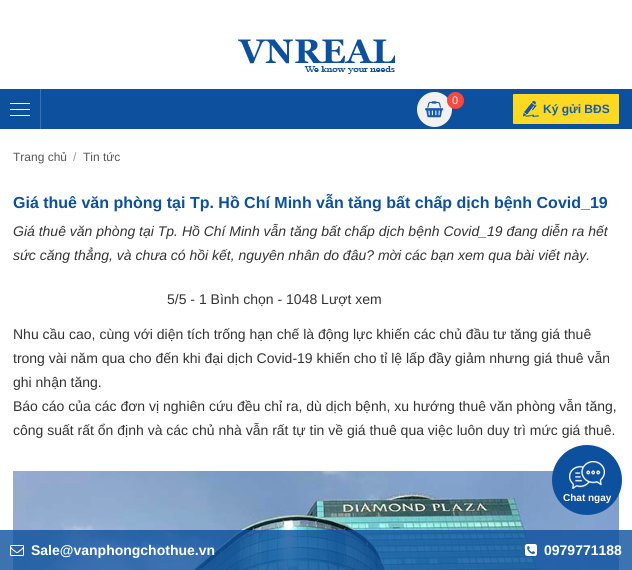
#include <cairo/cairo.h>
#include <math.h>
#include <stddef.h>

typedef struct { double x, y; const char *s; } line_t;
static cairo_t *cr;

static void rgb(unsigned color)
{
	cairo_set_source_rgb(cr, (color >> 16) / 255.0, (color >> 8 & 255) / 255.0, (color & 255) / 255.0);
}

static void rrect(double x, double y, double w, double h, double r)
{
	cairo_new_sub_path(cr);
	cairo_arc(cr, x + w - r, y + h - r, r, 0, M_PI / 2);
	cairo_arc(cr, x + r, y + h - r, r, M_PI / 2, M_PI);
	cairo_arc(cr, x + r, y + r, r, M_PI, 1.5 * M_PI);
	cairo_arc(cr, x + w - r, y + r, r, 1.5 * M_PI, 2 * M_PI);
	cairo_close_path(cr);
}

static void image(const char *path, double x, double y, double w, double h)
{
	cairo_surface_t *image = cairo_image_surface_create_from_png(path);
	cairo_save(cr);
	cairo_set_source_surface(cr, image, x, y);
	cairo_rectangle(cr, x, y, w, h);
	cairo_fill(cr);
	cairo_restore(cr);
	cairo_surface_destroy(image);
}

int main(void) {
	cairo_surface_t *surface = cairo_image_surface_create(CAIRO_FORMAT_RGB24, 632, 570);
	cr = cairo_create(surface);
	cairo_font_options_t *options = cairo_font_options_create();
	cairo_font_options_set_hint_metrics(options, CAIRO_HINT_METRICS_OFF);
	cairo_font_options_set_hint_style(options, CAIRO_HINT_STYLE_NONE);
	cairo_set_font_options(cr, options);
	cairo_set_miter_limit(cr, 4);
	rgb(0xffffff);
	cairo_paint(cr);
	image("img/1.png", 238, 39, 157, 35);
	rgb(0x0d509d);
	cairo_rectangle(cr, 0, 89, 632, 40);
	cairo_fill(cr);
	image("img/2.png", 10, 103, 20, 13);
	rgb(0x3d73b1);
	cairo_rectangle(cr, 40, 89, 1, 40);
	cairo_fill(cr);
	rgb(0xf1f1f1);
	cairo_arc(cr, 434.5, 109.5, 17.5, 0, 2 * M_PI);
	cairo_fill(cr);
	image("img/3.png", 425, 101, 19, 17);
	rgb(0xfa4741);
	cairo_arc(cr, 455.5, 100.5, 8.5, 0, 2 * M_PI);
	cairo_fill(cr);
	rgb(0xfdd922);
	rrect(513, 94, 106, 30, 1);
	cairo_fill(cr);
	image("img/4.png", 523, 101, 16, 16);
	image("img/5.png", 13, 471, 606, 99);
	rgb(0x0d509d);
	cairo_arc(cr, 587, 480, 35, 0, 2 * M_PI);
	cairo_fill(cr);
	image("img/6.png", 569, 461, 36, 28);
	cairo_set_source_rgba(cr, 0.051, 0.314, 0.616, 0.8);
	cairo_rectangle(cr, 0, 530, 632, 40);
	cairo_fill(cr);
	image("img/7.png", 10, 545, 14, 11);
	image("img/8.png", 525, 544, 12, 12);
	cairo_select_font_face(cr, "Liberation Sans", CAIRO_FONT_SLANT_NORMAL, CAIRO_FONT_WEIGHT_NORMAL);
	cairo_set_font_size(cr, 11);
	rgb(0xffffff);
	cairo_move_to(cr, 452, 104);
	cairo_show_text(cr, "0");
	cairo_select_font_face(cr, "Liberation Sans", CAIRO_FONT_SLANT_NORMAL, CAIRO_FONT_WEIGHT_BOLD);
	cairo_set_font_size(cr, 12);
	rgb(0x145bad);
	cairo_move_to(cr, 543, 113);
	cairo_show_text(cr, "Ký gửi BĐS");
	cairo_select_font_face(cr, "Liberation Sans", CAIRO_FONT_SLANT_NORMAL, CAIRO_FONT_WEIGHT_NORMAL);
	rgb(0x575757);
	cairo_move_to(cr, 13, 161);
	cairo_show_text(cr, "Trang chủ");
	rgb(0x999999);
	cairo_move_to(cr, 73, 161);
	cairo_show_text(cr, "/");
	rgb(0x575757);
	cairo_move_to(cr, 83, 161);
	cairo_show_text(cr, "Tin tức");
	cairo_select_font_face(cr, "Liberation Sans", CAIRO_FONT_SLANT_NORMAL, CAIRO_FONT_WEIGHT_BOLD);
	cairo_set_font_size(cr, 16);
	rgb(0x0d509d);
	cairo_move_to(cr, 13, 208);
	cairo_show_text(cr, "Giá thuê văn phòng tại Tp. Hồ Chí Minh vẫn tăng bất chấp dịch bệnh Covid_19");
	cairo_select_font_face(cr, "Liberation Sans", CAIRO_FONT_SLANT_ITALIC, CAIRO_FONT_WEIGHT_NORMAL);
	cairo_set_font_size(cr, 14);
	rgb(0x333333);
	cairo_move_to(cr, 13, 236);
	cairo_show_text(cr, "Giá thuê văn phòng tại Tp. Hồ Chí Minh vẫn tăng bất chấp dịch bệnh Covid_19 đang diễn ra hết");
	cairo_move_to(cr, 13, 260);
	cairo_show_text(cr, "sức căng thẳng, và chưa có hồi kết, nguyên nhân do đâu? mời các bạn xem qua bài viết này.");
	cairo_select_font_face(cr, "Liberation Sans", CAIRO_FONT_SLANT_NORMAL, CAIRO_FONT_WEIGHT_NORMAL);
	{
		static const line_t items[] = {
			{167, 304, "5/5 - 1 Bình chọn - 1048 Lượt xem"},
			{13, 339, "Nhu cầu cao, cùng với diện tích trống hạn chế là động lực khiến các chủ đầu tư tăng giá thuê"},
			{13, 363, "trong vài năm qua cho đến khi đại dịch Covid-19 khiến cho tỉ lệ lấp đầy giảm nhưng giá thuê vẫn"},
			{13, 387, "ghi nhận tăng."},
			{13, 411, "Báo cáo của các đơn vị nghiên cứu đều chỉ ra, dù dịch bệnh, xu hướng thuê văn phòng vẫn tăng,"},
			{13, 435, "công suất rất ổn định và các chủ nhà vẫn rất tự tin về giá thuê qua việc luôn duy trì mức giá thuê."},
		};
		for (size_t i = 0; i < sizeof items / sizeof *items; i++) {
			cairo_move_to(cr, items[i].x, items[i].y);
			cairo_show_text(cr, items[i].s);
		}
	}
	cairo_select_font_face(cr, "Liberation Sans", CAIRO_FONT_SLANT_NORMAL, CAIRO_FONT_WEIGHT_BOLD);
	cairo_set_font_size(cr, 10);
	rgb(0xffffff);
	cairo_move_to(cr, 563, 501);
	cairo_show_text(cr, "Chat ngay");
	cairo_set_font_size(cr, 14);
	cairo_move_to(cr, 31, 555);
	cairo_show_text(cr, "Sale@vanphongchothue.vn");
	cairo_move_to(cr, 544, 555);
	cairo_show_text(cr, "0979771188");
	cairo_surface_write_to_png(surface, "page.png");
	cairo_font_options_destroy(options);
	cairo_destroy(cr);
	cairo_surface_destroy(surface);
	return 0;
}
